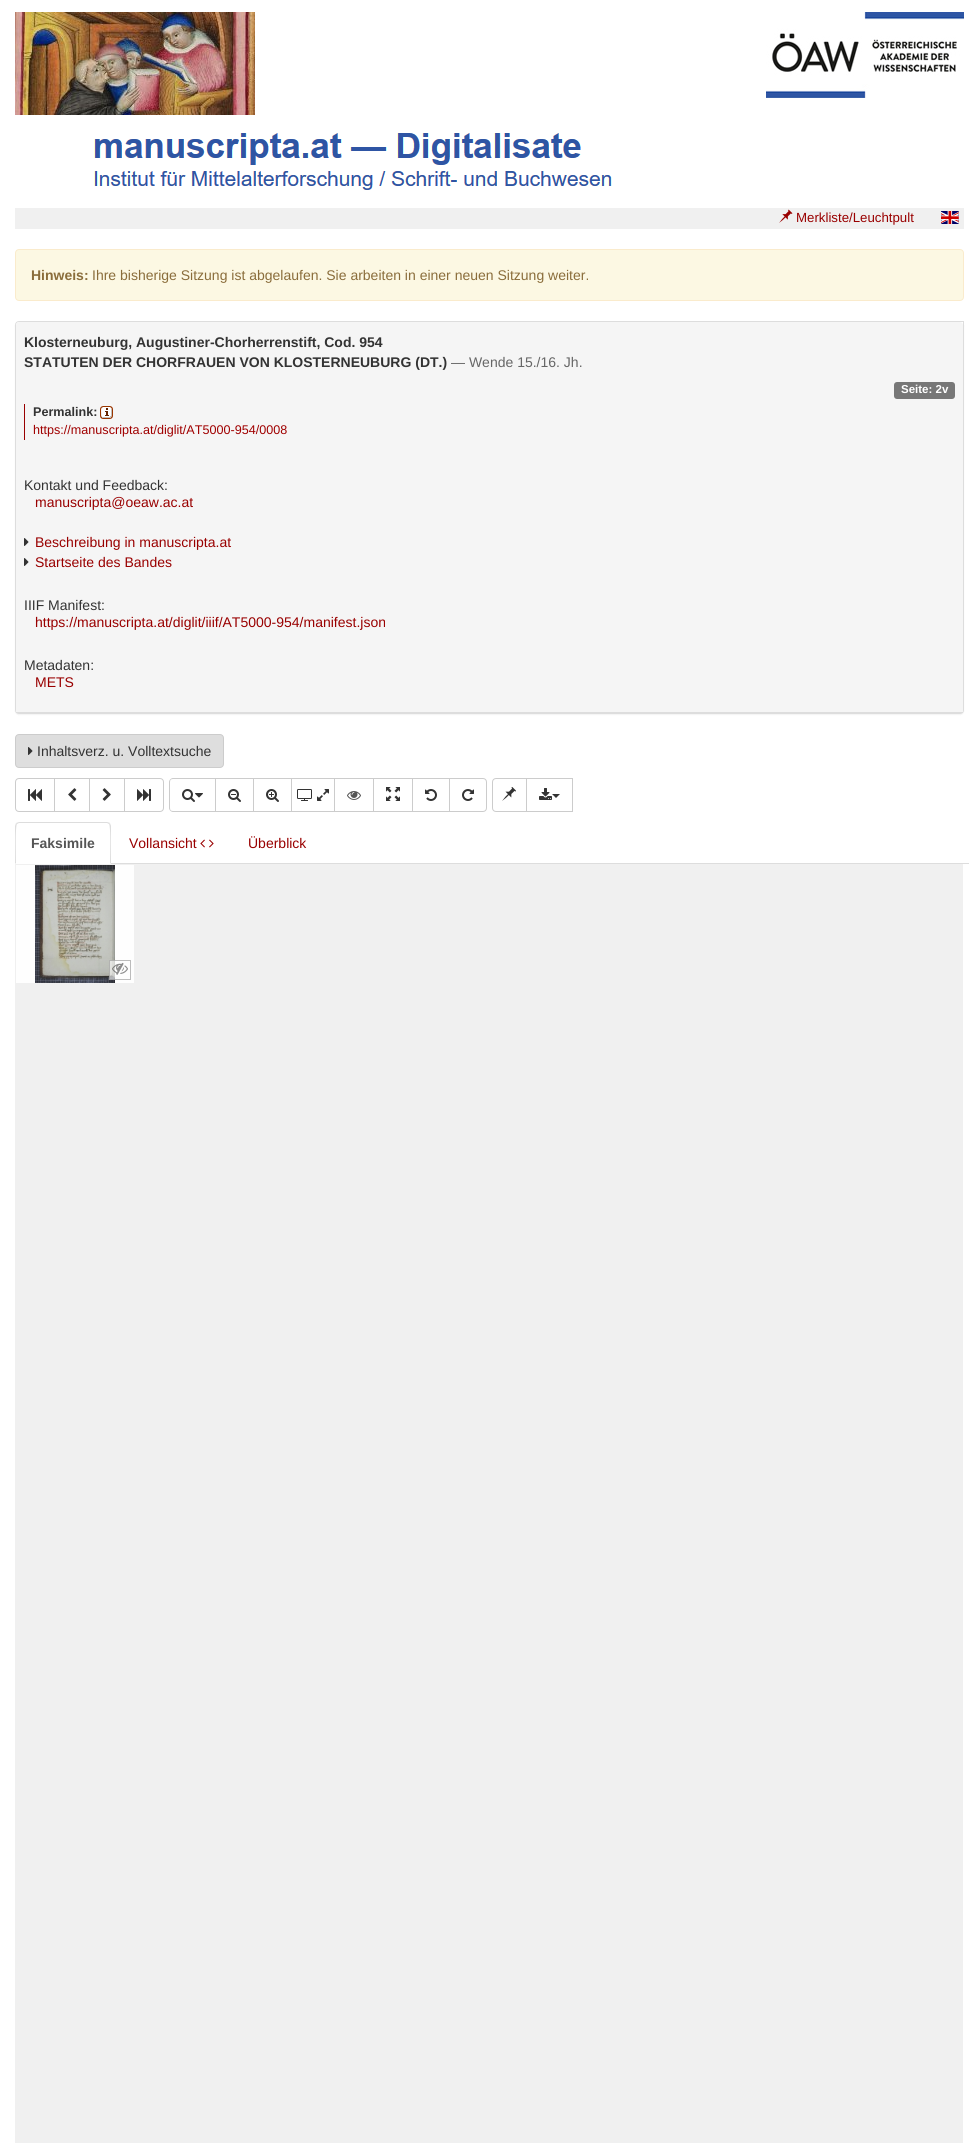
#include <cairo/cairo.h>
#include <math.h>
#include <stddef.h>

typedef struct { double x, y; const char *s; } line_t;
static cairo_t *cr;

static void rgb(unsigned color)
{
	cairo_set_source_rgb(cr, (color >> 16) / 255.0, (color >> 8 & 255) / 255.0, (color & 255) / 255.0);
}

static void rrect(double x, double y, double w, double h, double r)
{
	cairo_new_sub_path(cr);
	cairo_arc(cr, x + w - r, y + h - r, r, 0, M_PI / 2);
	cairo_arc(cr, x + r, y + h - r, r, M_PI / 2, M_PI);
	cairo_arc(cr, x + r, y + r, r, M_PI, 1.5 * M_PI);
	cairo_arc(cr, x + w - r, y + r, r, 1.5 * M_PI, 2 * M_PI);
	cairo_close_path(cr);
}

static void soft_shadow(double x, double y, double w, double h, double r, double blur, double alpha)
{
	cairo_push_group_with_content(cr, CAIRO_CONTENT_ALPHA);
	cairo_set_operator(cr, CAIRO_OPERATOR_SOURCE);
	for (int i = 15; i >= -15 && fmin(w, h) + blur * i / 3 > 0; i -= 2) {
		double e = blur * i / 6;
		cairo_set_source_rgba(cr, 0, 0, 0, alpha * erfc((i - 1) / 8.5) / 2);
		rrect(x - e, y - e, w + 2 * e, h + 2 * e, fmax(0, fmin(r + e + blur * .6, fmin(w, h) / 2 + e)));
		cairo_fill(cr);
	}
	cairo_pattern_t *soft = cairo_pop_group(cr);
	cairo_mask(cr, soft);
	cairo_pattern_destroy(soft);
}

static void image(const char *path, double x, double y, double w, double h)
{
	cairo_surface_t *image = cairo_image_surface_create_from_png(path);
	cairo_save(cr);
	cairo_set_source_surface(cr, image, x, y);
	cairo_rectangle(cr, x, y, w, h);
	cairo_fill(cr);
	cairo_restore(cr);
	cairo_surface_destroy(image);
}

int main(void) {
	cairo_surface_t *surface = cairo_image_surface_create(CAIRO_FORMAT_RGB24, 979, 2143);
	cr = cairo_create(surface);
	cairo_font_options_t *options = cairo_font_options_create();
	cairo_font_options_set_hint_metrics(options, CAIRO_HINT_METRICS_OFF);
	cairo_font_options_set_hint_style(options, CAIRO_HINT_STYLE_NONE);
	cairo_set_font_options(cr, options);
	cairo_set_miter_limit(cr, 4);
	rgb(0xffffff);
	cairo_paint(cr);
	image("img/1.png", 15, 12, 240, 103);
	image("img/2.png", 766, 12, 198, 86);
	image("img/3.png", 94, 133, 518, 57);
	rgb(0xf0f0f0);
	cairo_rectangle(cr, 15, 208, 949, 21);
	cairo_fill(cr);
	image("img/4.png", 779, 209, 14, 14);
	image("img/5.png", 941, 211, 18, 13);
	rgb(0xfcf8e3);
	rrect(15.5, 249.5, 948, 51, 3.5);
	cairo_fill_preserve(cr);
	rgb(0xfaebcc);
	cairo_set_line_width(cr, 1);
	cairo_stroke(cr);
	rgb(0x000000);
	soft_shadow(15, 322, 949, 393, 4, 0.5, 0.05);
	rgb(0xffffff);
	cairo_new_path(cr);
	cairo_move_to(cr, 19, 321.5);
	cairo_line_to(cr, 963.5, 321.5);
	cairo_line_to(cr, 963.5, 710);
	cairo_curve_to(cr, 963.5, 712, 962, 713.5, 960, 713.5);
	cairo_line_to(cr, 19, 713.5);
	cairo_curve_to(cr, 17, 713.5, 15.5, 712, 15.5, 710);
	cairo_line_to(cr, 15.5, 325);
	cairo_curve_to(cr, 15.5, 323, 17, 321.5, 19, 321.5);
	cairo_close_path(cr);
	cairo_fill_preserve(cr);
	rgb(0xdddddd);
	cairo_stroke(cr);
	rgb(0xf5f5f5);
	cairo_new_path(cr);
	cairo_move_to(cr, 19, 322);
	cairo_line_to(cr, 960, 322);
	cairo_curve_to(cr, 961.5, 322, 963, 323.5, 963, 325);
	cairo_line_to(cr, 963, 713);
	cairo_line_to(cr, 16, 713);
	cairo_line_to(cr, 16, 325);
	cairo_curve_to(cr, 16, 323.5, 17.5, 322, 19, 322);
	cairo_close_path(cr);
	cairo_fill(cr);
	rgb(0xdddddd);
	cairo_rectangle(cr, 16, 712, 947, 1);
	cairo_fill(cr);
	rgb(0x777777);
	rrect(894, 382, 61, 17, 3);
	cairo_fill(cr);
	rgb(0x990000);
	cairo_rectangle(cr, 24, 404, 1, 36);
	cairo_fill(cr);
	image("img/6.png", 100, 406, 13, 13);
	image("img/7.png", 24, 538, 5, 8);
	image("img/7.png", 24, 558, 5, 8);
	rgb(0xdedede);
	rrect(15.5, 734.5, 208, 33, 3.5);
	cairo_fill_preserve(cr);
	rgb(0xcccccc);
	cairo_stroke(cr);
	image("img/8.png", 28, 747, 5, 8);
	cairo_new_path(cr);
	cairo_move_to(cr, 19, 778.5);
	cairo_line_to(cr, 54.5, 778.5);
	cairo_line_to(cr, 54.5, 811.5);
	cairo_line_to(cr, 19, 811.5);
	cairo_curve_to(cr, 17, 811.5, 15.5, 810, 15.5, 808);
	cairo_line_to(cr, 15.5, 782);
	cairo_curve_to(cr, 15.5, 780, 17, 778.5, 19, 778.5);
	cairo_close_path(cr);
	cairo_stroke(cr);
	image("img/9.png", 28, 789, 14, 12);
	cairo_rectangle(cr, 54.5, 778.5, 35, 33);
	cairo_stroke(cr);
	image("img/10.png", 68, 788, 9, 13);
	cairo_rectangle(cr, 89.5, 778.5, 35, 33);
	cairo_stroke(cr);
	image("img/11.png", 102, 788, 9, 13);
	rgb(0xffffff);
	cairo_new_path(cr);
	cairo_move_to(cr, 124.5, 778.5);
	cairo_line_to(cr, 160, 778.5);
	cairo_curve_to(cr, 162, 778.5, 163.5, 780, 163.5, 782);
	cairo_line_to(cr, 163.5, 808);
	cairo_curve_to(cr, 163.5, 810, 162, 811.5, 160, 811.5);
	cairo_line_to(cr, 124.5, 811.5);
	cairo_close_path(cr);
	cairo_fill_preserve(cr);
	rgb(0xcccccc);
	cairo_stroke(cr);
	image("img/12.png", 137, 789, 14, 12);
	cairo_set_fill_rule(cr, CAIRO_FILL_RULE_EVEN_ODD);
	cairo_new_path(cr);
	cairo_move_to(cr, 173, 778);
	cairo_line_to(cr, 215, 778);
	cairo_line_to(cr, 215, 812);
	cairo_line_to(cr, 173, 812);
	cairo_curve_to(cr, 171, 812, 169, 810, 169, 808);
	cairo_line_to(cr, 169, 782);
	cairo_curve_to(cr, 169, 780, 171, 778, 173, 778);
	cairo_close_path(cr);
	cairo_move_to(cr, 173, 779);
	cairo_line_to(cr, 215, 779);
	cairo_line_to(cr, 215, 811);
	cairo_line_to(cr, 173, 811);
	cairo_curve_to(cr, 171, 811, 170, 810, 170, 808);
	cairo_line_to(cr, 170, 782);
	cairo_curve_to(cr, 170, 780, 171, 779, 173, 779);
	cairo_close_path(cr);
	cairo_fill(cr);
	image("img/13.png", 182, 789, 13, 13);
	image("img/14.png", 195, 793, 8, 5);
	cairo_rectangle(cr, 215.5, 778.5, 38, 33);
	cairo_stroke(cr);
	image("img/15.png", 228, 789, 13, 13);
	cairo_rectangle(cr, 253.5, 778.5, 38, 33);
	cairo_stroke(cr);
	image("img/16.png", 266, 789, 13, 13);
	cairo_rectangle(cr, 291.5, 778.5, 43, 33);
	cairo_stroke(cr);
	image("img/17.png", 297, 789, 15, 12);
	image("img/18.png", 317, 789, 12, 12);
	cairo_rectangle(cr, 334.5, 778.5, 39, 33);
	cairo_stroke(cr);
	image("img/19.png", 347, 791, 14, 9);
	cairo_rectangle(cr, 373.5, 778.5, 39, 33);
	cairo_stroke(cr);
	image("img/20.png", 386, 787, 14, 14);
	cairo_rectangle(cr, 412.5, 778.5, 37, 33);
	cairo_stroke(cr);
	image("img/21.png", 425, 789, 12, 12);
	rgb(0xffffff);
	cairo_new_path(cr);
	cairo_move_to(cr, 449.5, 778.5);
	cairo_line_to(cr, 483, 778.5);
	cairo_curve_to(cr, 485, 778.5, 486.5, 780, 486.5, 782);
	cairo_line_to(cr, 486.5, 808);
	cairo_curve_to(cr, 486.5, 810, 485, 811.5, 483, 811.5);
	cairo_line_to(cr, 449.5, 811.5);
	cairo_close_path(cr);
	cairo_fill_preserve(cr);
	rgb(0xcccccc);
	cairo_stroke(cr);
	image("img/22.png", 462, 789, 12, 12);
	cairo_new_path(cr);
	cairo_move_to(cr, 496, 778.5);
	cairo_line_to(cr, 526.5, 778.5);
	cairo_line_to(cr, 526.5, 811.5);
	cairo_line_to(cr, 496, 811.5);
	cairo_curve_to(cr, 494, 811.5, 492.5, 810, 492.5, 808);
	cairo_line_to(cr, 492.5, 782);
	cairo_curve_to(cr, 492.5, 780, 494, 778.5, 496, 778.5);
	cairo_close_path(cr);
	cairo_stroke(cr);
	image("img/23.png", 502, 787, 14, 14);
	cairo_rectangle(cr, 526.5, 778.5, 46, 33);
	cairo_stroke(cr);
	image("img/24.png", 539, 788, 13, 12);
	rgb(0x333333);
	cairo_set_fill_rule(cr, CAIRO_FILL_RULE_WINDING);
	cairo_new_path(cr);
	cairo_move_to(cr, 552, 794);
	cairo_line_to(cr, 560, 794);
	cairo_line_to(cr, 556, 798);
	cairo_close_path(cr);
	cairo_fill(cr);
	rgb(0xdddddd);
	cairo_rectangle(cr, 111, 863, 858, 1);
	cairo_fill(cr);
	cairo_new_path(cr);
	cairo_move_to(cr, 19, 822);
	cairo_line_to(cr, 16, 823);
	cairo_line_to(cr, 17, 824);
	cairo_line_to(cr, 19, 823);
	cairo_line_to(cr, 107, 823);
	cairo_line_to(cr, 109, 824);
	cairo_line_to(cr, 110, 823);
	cairo_line_to(cr, 107, 822);
	cairo_close_path(cr);
	cairo_fill(cr);
	cairo_new_path(cr);
	cairo_move_to(cr, 111, 864);
	cairo_line_to(cr, 111, 826);
	cairo_curve_to(cr, 111, 825, 110, 824, 110, 823);
	cairo_line_to(cr, 109, 824);
	cairo_curve_to(cr, 111, 826, 110, 858, 110, 863);
	cairo_close_path(cr);
	cairo_fill(cr);
	cairo_new_path(cr);
	cairo_move_to(cr, 15, 864);
	cairo_line_to(cr, 16, 863);
	cairo_curve_to(cr, 16, 858, 15, 826, 17, 824);
	cairo_line_to(cr, 16, 823);
	cairo_line_to(cr, 15, 826);
	cairo_close_path(cr);
	cairo_fill(cr);
	image("img/25.png", 200, 839, 5, 9);
	image("img/26.png", 209, 839, 5, 9);
	rgb(0xf0f0f0);
	cairo_rectangle(cr, 15, 864, 948, 1279);
	cairo_fill(cr);
	rgb(0xfefefe);
	cairo_rectangle(cr, 16, 865, 118, 118);
	cairo_fill(cr);
	image("img/27.png", 35, 865, 80, 118);
	cairo_set_source_rgba(cr, 1, 1, 1, 0.6);
	cairo_rectangle(cr, 109, 960, 6, 20);
	cairo_fill(cr);
	cairo_rectangle(cr, 109.5, 960.5, 21, 19);
	cairo_set_source_rgba(cr, 0.565, 0.565, 0.565, 0.6);
	cairo_stroke(cr);
	image("img/28.png", 112, 962, 16, 13);
	cairo_select_font_face(cr, "Liberation Sans", CAIRO_FONT_SLANT_NORMAL, CAIRO_FONT_WEIGHT_NORMAL);
	cairo_set_font_size(cr, 13.25);
	rgb(0x990000);
	cairo_move_to(cr, 796, 222);
	cairo_show_text(cr, "Merkliste/Leuchtpult");
	cairo_select_font_face(cr, "Liberation Sans", CAIRO_FONT_SLANT_NORMAL, CAIRO_FONT_WEIGHT_BOLD);
	cairo_set_font_size(cr, 14);
	rgb(0x8a6d3b);
	cairo_move_to(cr, 31, 280);
	cairo_show_text(cr, "Hinweis:");
	cairo_select_font_face(cr, "Liberation Sans", CAIRO_FONT_SLANT_NORMAL, CAIRO_FONT_WEIGHT_NORMAL);
	cairo_move_to(cr, 92, 280);
	cairo_show_text(cr, "Ihre bisherige Sitzung ist abgelaufen. Sie arbeiten in einer neuen Sitzung weiter.");
	cairo_select_font_face(cr, "Liberation Sans", CAIRO_FONT_SLANT_NORMAL, CAIRO_FONT_WEIGHT_BOLD);
	rgb(0x333333);
	cairo_move_to(cr, 24, 347);
	cairo_show_text(cr, "Klosterneuburg, Augustiner-Chorherrenstift, Cod. 954");
	cairo_move_to(cr, 24, 367);
	cairo_show_text(cr, "STATUTEN DER CHORFRAUEN VON KLOSTERNEUBURG (DT.)");
	cairo_select_font_face(cr, "Liberation Sans", CAIRO_FONT_SLANT_NORMAL, CAIRO_FONT_WEIGHT_NORMAL);
	rgb(0x666666);
	cairo_move_to(cr, 451, 367);
	cairo_show_text(cr, "— Wende 15./16. Jh.");
	cairo_select_font_face(cr, "Liberation Sans", CAIRO_FONT_SLANT_NORMAL, CAIRO_FONT_WEIGHT_BOLD);
	cairo_set_font_size(cr, 11.5);
	rgb(0xffffff);
	cairo_move_to(cr, 901, 393);
	cairo_show_text(cr, "Seite: 2v");
	cairo_set_font_size(cr, 12.6);
	rgb(0x333333);
	cairo_move_to(cr, 33, 416);
	cairo_show_text(cr, "Permalink:");
	cairo_select_font_face(cr, "Liberation Sans", CAIRO_FONT_SLANT_NORMAL, CAIRO_FONT_WEIGHT_NORMAL);
	rgb(0xa00000);
	cairo_move_to(cr, 33, 434);
	cairo_show_text(cr, "https://manuscripta.at/diglit/AT5000-954/0008");
	cairo_set_font_size(cr, 14);
	rgb(0x333333);
	cairo_move_to(cr, 24, 490);
	cairo_show_text(cr, "Kontakt und Feedback:");
	rgb(0x990000);
	{
		static const line_t items[] = {
			{35, 507, "manuscripta@oeaw.ac.at"},
			{35, 547, "Beschreibung in manuscripta.at"},
			{35, 567, "Startseite des Bandes"},
		};
		for (size_t i = 0; i < sizeof items / sizeof *items; i++) {
			cairo_move_to(cr, items[i].x, items[i].y);
			cairo_show_text(cr, items[i].s);
		}
	}
	rgb(0x333333);
	cairo_move_to(cr, 24, 610);
	cairo_show_text(cr, "IIIF Manifest:");
	rgb(0x990000);
	cairo_move_to(cr, 35, 627);
	cairo_show_text(cr, "https://manuscripta.at/diglit/iiif/AT5000-954/manifest.json");
	rgb(0x333333);
	cairo_move_to(cr, 24, 670);
	cairo_show_text(cr, "Metadaten:");
	rgb(0x990000);
	cairo_move_to(cr, 35, 687);
	cairo_show_text(cr, "METS");
	rgb(0x333333);
	cairo_move_to(cr, 37, 756);
	cairo_show_text(cr, "Inhaltsverz. u. Volltextsuche");
	cairo_select_font_face(cr, "Liberation Sans", CAIRO_FONT_SLANT_NORMAL, CAIRO_FONT_WEIGHT_BOLD);
	rgb(0x555555);
	cairo_move_to(cr, 31, 848);
	cairo_show_text(cr, "Faksimile");
	cairo_select_font_face(cr, "Liberation Sans", CAIRO_FONT_SLANT_NORMAL, CAIRO_FONT_WEIGHT_NORMAL);
	rgb(0x990000);
	cairo_move_to(cr, 129, 848);
	cairo_show_text(cr, "Vollansicht");
	cairo_move_to(cr, 248, 848);
	cairo_show_text(cr, "Überblick");
	cairo_surface_write_to_png(surface, "page.png");
	cairo_font_options_destroy(options);
	cairo_destroy(cr);
	cairo_surface_destroy(surface);
	return 0;
}
